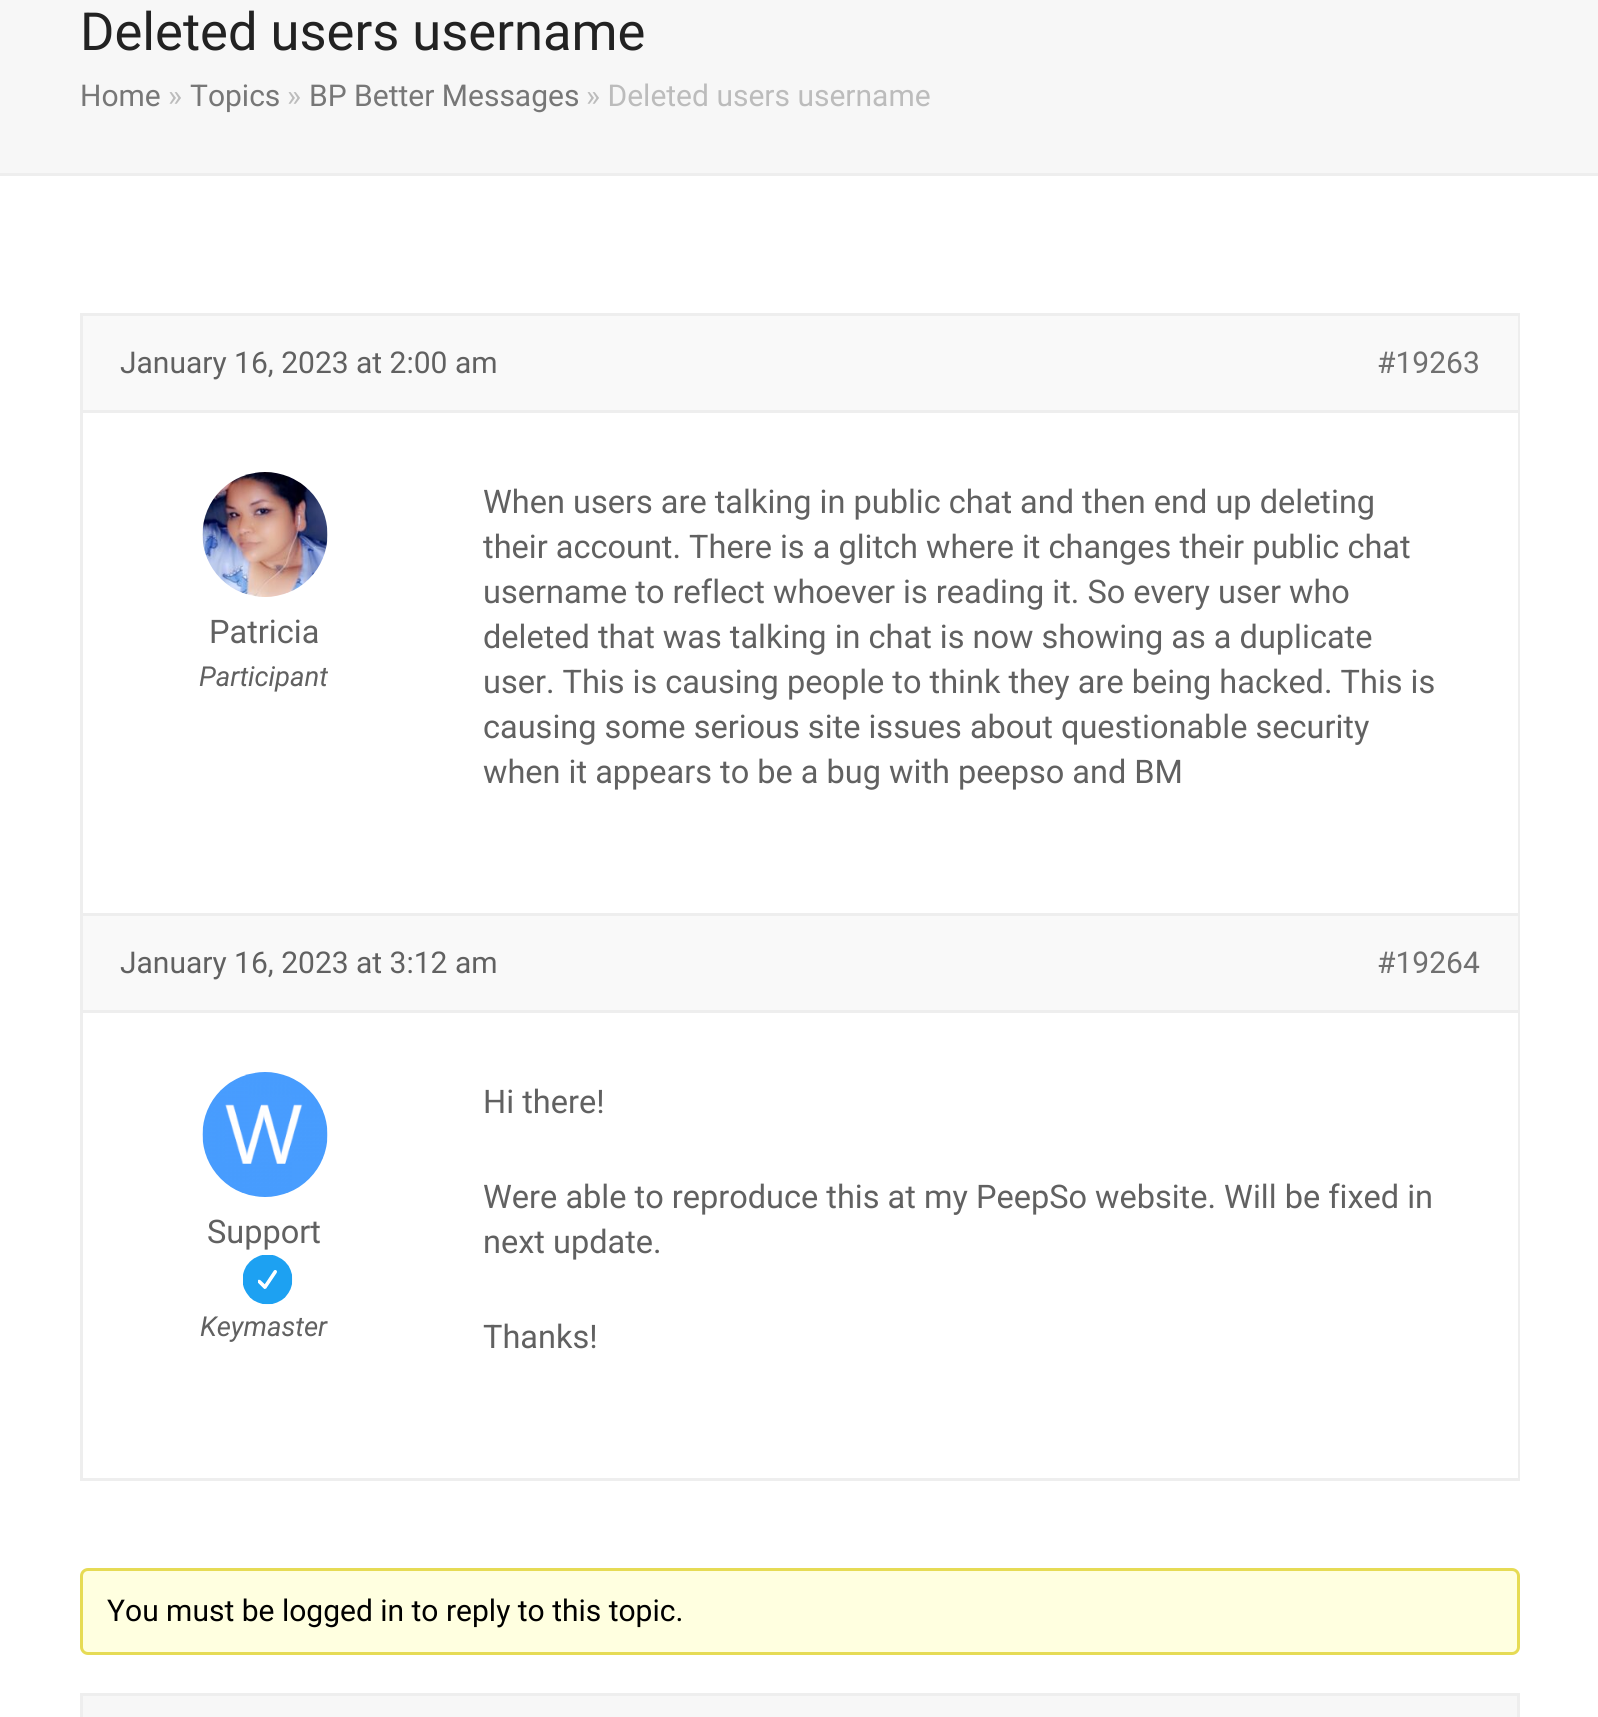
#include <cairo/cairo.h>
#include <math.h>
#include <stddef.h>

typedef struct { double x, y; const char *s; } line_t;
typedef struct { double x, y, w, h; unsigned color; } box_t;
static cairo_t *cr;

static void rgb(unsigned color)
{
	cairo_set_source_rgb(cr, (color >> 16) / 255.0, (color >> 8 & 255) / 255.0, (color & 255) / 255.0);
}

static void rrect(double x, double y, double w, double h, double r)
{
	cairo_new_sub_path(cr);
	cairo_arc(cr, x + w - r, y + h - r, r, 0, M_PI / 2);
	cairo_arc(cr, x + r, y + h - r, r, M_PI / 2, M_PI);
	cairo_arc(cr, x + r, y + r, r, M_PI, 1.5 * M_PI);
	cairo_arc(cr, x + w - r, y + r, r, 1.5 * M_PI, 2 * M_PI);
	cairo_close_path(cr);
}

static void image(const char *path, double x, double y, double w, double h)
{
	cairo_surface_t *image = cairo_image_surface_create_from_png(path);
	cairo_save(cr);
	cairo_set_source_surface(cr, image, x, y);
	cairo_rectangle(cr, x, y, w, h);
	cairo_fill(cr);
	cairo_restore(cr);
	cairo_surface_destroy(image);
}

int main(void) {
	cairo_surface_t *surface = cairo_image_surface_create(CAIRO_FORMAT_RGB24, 1598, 1717);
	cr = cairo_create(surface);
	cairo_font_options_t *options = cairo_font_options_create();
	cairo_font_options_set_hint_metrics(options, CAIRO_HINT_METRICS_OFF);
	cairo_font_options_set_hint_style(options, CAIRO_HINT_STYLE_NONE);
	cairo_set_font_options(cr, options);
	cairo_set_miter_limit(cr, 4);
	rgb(0xffffff);
	cairo_paint(cr);
	{
		static const box_t items[] = {
			{0, 0, 1598, 173, 0xf7f7f7},
			{0, 173, 1598, 3, 0xeeeeee},
			{1518, 313, 2, 1167, 0xeeeeee},
			{80, 1478, 1440, 3, 0xeeeeee},
			{80, 313, 3, 1167, 0xeeeeee},
			{83, 316, 1435, 94, 0xf9f9f9},
			{83, 313, 1435, 3, 0xeeeeee},
			{83, 410, 1435, 3, 0xeeeeee},
		};
		for (size_t i = 0; i < sizeof items / sizeof *items; i++) {
			rgb(items[i].color);
			cairo_rectangle(cr, items[i].x, items[i].y, items[i].w, items[i].h);
			cairo_fill(cr);
		}
	}
	image("img/1.png", 202, 472, 126, 125);
	{
		static const box_t items[] = {
			{83, 916, 1435, 94, 0xf9f9f9},
			{83, 913, 1435, 3, 0xeeeeee},
			{83, 1010, 1435, 3, 0xeeeeee},
		};
		for (size_t i = 0; i < sizeof items / sizeof *items; i++) {
			rgb(items[i].color);
			cairo_rectangle(cr, items[i].x, items[i].y, items[i].w, items[i].h);
			cairo_fill(cr);
		}
	}
	image("img/2.png", 202, 1072, 126, 125);
	image("img/3.png", 243, 1255, 50, 50);
	rgb(0xffffe0);
	rrect(81.5, 1569.5, 1437, 84, 6.5);
	cairo_fill_preserve(cr);
	rgb(0xe6db55);
	cairo_set_line_width(cr, 3);
	cairo_stroke(cr);
	rgb(0xf7f7f7);
	cairo_rectangle(cr, 81.5, 1694.5, 1437, 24);
	cairo_fill_preserve(cr);
	rgb(0xeeeeee);
	cairo_stroke(cr);
	cairo_select_font_face(cr, "Roboto", CAIRO_FONT_SLANT_NORMAL, CAIRO_FONT_WEIGHT_NORMAL);
	cairo_set_font_size(cr, 52.5);
	rgb(0x222222);
	cairo_move_to(cr, 80, 50);
	cairo_show_text(cr, "Deleted users username");
	cairo_set_font_size(cr, 30);
	rgb(0x777777);
	cairo_move_to(cr, 80, 106);
	cairo_show_text(cr, "Home");
	rgb(0xbcbcbc);
	cairo_move_to(cr, 168, 106);
	cairo_show_text(cr, "»");
	rgb(0x777777);
	cairo_move_to(cr, 190, 106);
	cairo_show_text(cr, "Topics");
	rgb(0xbcbcbc);
	cairo_move_to(cr, 287, 106);
	cairo_show_text(cr, "»");
	rgb(0x777777);
	cairo_move_to(cr, 309, 106);
	cairo_show_text(cr, "BP Better Messages");
	rgb(0xbcbcbc);
	cairo_move_to(cr, 586, 106);
	cairo_show_text(cr, "» Deleted users username");
	rgb(0x616161);
	cairo_move_to(cr, 120, 373);
	cairo_show_text(cr, "January 16, 2023 at 2:00 am");
	rgb(0x707070);
	cairo_move_to(cr, 1377, 373);
	cairo_show_text(cr, "#19263");
	cairo_set_font_size(cr, 32.5);
	rgb(0x616161);
	cairo_move_to(cr, 209, 643);
	cairo_show_text(cr, "Patricia");
	cairo_select_font_face(cr, "Roboto", CAIRO_FONT_SLANT_ITALIC, CAIRO_FONT_WEIGHT_NORMAL);
	cairo_set_font_size(cr, 27.5);
	cairo_move_to(cr, 199, 686);
	cairo_show_text(cr, "Participant");
	cairo_select_font_face(cr, "Roboto", CAIRO_FONT_SLANT_NORMAL, CAIRO_FONT_WEIGHT_NORMAL);
	cairo_set_font_size(cr, 32.5);
	{
		static const line_t items[] = {
			{483, 513, "When users are talking in public chat and then end up deleting"},
			{483, 558, "their account. There is a glitch where it changes their public chat"},
			{483, 603, "username to reflect whoever is reading it. So every user who"},
			{483, 648, "deleted that was talking in chat is now showing as a duplicate"},
			{483, 693, "user. This is causing people to think they are being hacked. This is"},
			{483, 738, "causing some serious site issues about questionable security"},
			{483, 783, "when it appears to be a bug with peepso and BM"},
		};
		for (size_t i = 0; i < sizeof items / sizeof *items; i++) {
			cairo_move_to(cr, items[i].x, items[i].y);
			cairo_show_text(cr, items[i].s);
		}
	}
	cairo_set_font_size(cr, 30);
	cairo_move_to(cr, 120, 973);
	cairo_show_text(cr, "January 16, 2023 at 3:12 am");
	rgb(0x707070);
	cairo_move_to(cr, 1377, 973);
	cairo_show_text(cr, "#19264");
	cairo_set_font_size(cr, 32.5);
	rgb(0x616161);
	cairo_move_to(cr, 207, 1243);
	cairo_show_text(cr, "Support");
	cairo_select_font_face(cr, "Roboto", CAIRO_FONT_SLANT_ITALIC, CAIRO_FONT_WEIGHT_NORMAL);
	cairo_set_font_size(cr, 27.5);
	cairo_move_to(cr, 200, 1336);
	cairo_show_text(cr, "Keymaster");
	cairo_select_font_face(cr, "Roboto", CAIRO_FONT_SLANT_NORMAL, CAIRO_FONT_WEIGHT_NORMAL);
	cairo_set_font_size(cr, 32.5);
	{
		static const line_t items[] = {
			{483, 1113, "Hi there!"},
			{483, 1208, "Were able to reproduce this at my PeepSo website. Will be fixed in"},
			{483, 1253, "next update."},
			{483, 1348, "Thanks!"},
		};
		for (size_t i = 0; i < sizeof items / sizeof *items; i++) {
			cairo_move_to(cr, items[i].x, items[i].y);
			cairo_show_text(cr, items[i].s);
		}
	}
	cairo_set_font_size(cr, 30);
	rgb(0x000000);
	cairo_move_to(cr, 107, 1621);
	cairo_show_text(cr, "You must be logged in to reply to this topic.");
	cairo_surface_write_to_png(surface, "page.png");
	cairo_font_options_destroy(options);
	cairo_destroy(cr);
	cairo_surface_destroy(surface);
	return 0;
}
